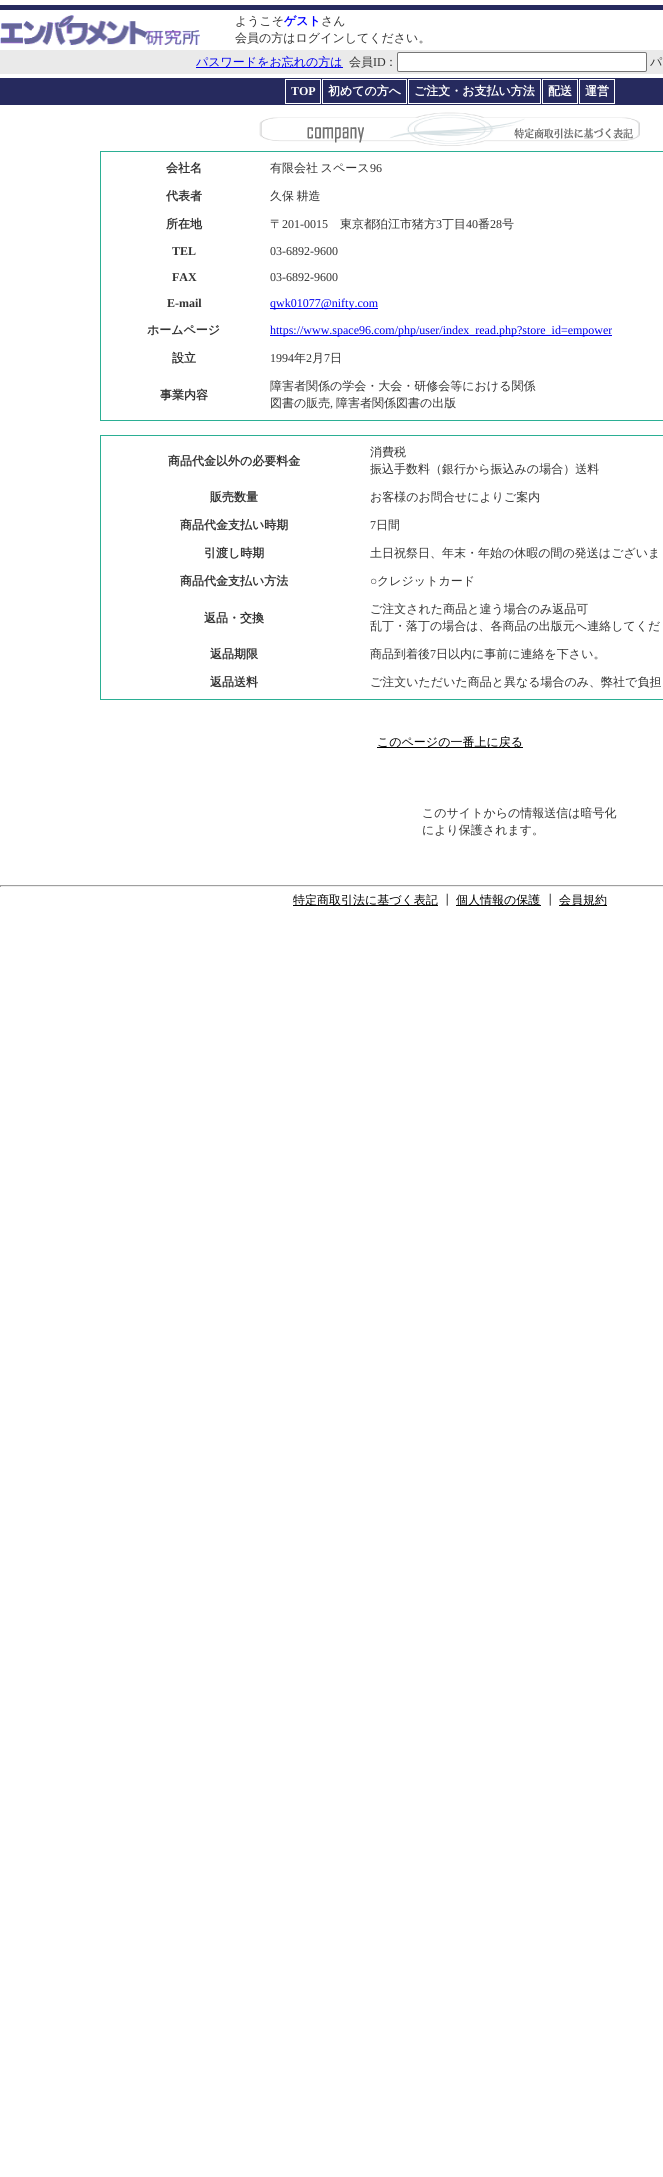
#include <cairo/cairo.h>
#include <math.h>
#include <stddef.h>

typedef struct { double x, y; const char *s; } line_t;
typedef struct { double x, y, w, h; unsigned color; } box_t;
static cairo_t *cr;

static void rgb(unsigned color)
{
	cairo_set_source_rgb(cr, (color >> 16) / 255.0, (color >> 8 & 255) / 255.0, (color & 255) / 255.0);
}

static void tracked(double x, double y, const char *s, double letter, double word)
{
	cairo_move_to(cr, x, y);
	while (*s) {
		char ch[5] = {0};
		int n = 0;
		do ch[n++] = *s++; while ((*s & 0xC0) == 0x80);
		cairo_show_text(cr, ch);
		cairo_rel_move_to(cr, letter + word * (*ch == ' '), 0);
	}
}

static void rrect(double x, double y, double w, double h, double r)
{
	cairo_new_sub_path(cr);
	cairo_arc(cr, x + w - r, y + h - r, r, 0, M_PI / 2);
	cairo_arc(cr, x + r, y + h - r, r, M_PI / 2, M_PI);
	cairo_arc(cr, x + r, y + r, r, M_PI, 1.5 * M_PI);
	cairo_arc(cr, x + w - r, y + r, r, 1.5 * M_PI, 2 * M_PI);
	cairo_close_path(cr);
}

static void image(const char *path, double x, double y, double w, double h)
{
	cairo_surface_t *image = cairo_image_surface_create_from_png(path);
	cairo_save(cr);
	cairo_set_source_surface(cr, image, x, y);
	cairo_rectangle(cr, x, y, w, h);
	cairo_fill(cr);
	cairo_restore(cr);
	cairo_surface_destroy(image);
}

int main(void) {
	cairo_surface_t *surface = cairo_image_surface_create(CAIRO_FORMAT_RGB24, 663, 2177);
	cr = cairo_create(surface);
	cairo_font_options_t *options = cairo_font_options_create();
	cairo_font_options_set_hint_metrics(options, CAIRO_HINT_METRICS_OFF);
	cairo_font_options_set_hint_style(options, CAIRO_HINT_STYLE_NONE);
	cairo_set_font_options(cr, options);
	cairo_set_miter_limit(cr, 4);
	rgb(0xffffff);
	cairo_paint(cr);
	rgb(0x262a5e);
	cairo_rectangle(cr, 0, 5, 663, 5);
	cairo_fill(cr);
	image("img/1.png", 0, 15, 200, 30);
	rgb(0xeaeaea);
	cairo_rectangle(cr, 0, 50, 663, 24);
	cairo_fill(cr);
	rgb(0x0000ee);
	cairo_rectangle(cr, 196, 67, 147, 1);
	cairo_fill(cr);
	rgb(0xffffff);
	rrect(397.5, 52.5, 249, 19, 1.5);
	cairo_fill_preserve(cr);
	rgb(0x767676);
	cairo_set_line_width(cr, 1);
	cairo_stroke(cr);
	rgb(0x262a5e);
	cairo_rectangle(cr, 0, 78, 663, 27);
	cairo_fill(cr);
	cairo_rectangle(cr, 285.5, 79.5, 35, 24);
	rgb(0xffffff);
	cairo_stroke(cr);
	cairo_rectangle(cr, 322.5, 79.5, 84, 24);
	cairo_stroke(cr);
	cairo_rectangle(cr, 408.5, 79.5, 132, 24);
	cairo_stroke(cr);
	cairo_rectangle(cr, 542.5, 79.5, 35, 24);
	cairo_stroke(cr);
	cairo_rectangle(cr, 579.5, 79.5, 35, 24);
	cairo_stroke(cr);
	image("img/2.png", 259, 112, 381, 34);
	cairo_rectangle(cr, 100.5, 151.5, 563, 269);
	rgb(0x2baf94);
	cairo_stroke(cr);
	rgb(0x0000ee);
	cairo_rectangle(cr, 270, 308, 108, 1);
	cairo_fill(cr);
	cairo_rectangle(cr, 270, 335, 342, 1);
	cairo_fill(cr);
	cairo_rectangle(cr, 100.5, 435.5, 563, 264);
	rgb(0x2baf94);
	cairo_stroke(cr);
	{
		static const box_t items[] = {
			{377, 747, 146, 1, 0x000000},
			{0, 885, 663, 1, 0x9f9f9f},
			{0, 886, 663, 1, 0xeeeeee},
			{0, 885, 1, 2, 0x9f9f9f},
			{293, 905, 145, 1, 0x000000},
			{456, 905, 85, 1, 0x000000},
			{559, 905, 48, 1, 0x000000},
		};
		for (size_t i = 0; i < sizeof items / sizeof *items; i++) {
			rgb(items[i].color);
			cairo_rectangle(cr, items[i].x, items[i].y, items[i].w, items[i].h);
			cairo_fill(cr);
		}
	}
	cairo_select_font_face(cr, "WenQuanYi Zen Hei Medium", CAIRO_FONT_SLANT_NORMAL, CAIRO_FONT_WEIGHT_NORMAL);
	cairo_set_font_size(cr, 12);
	rgb(0x333333);
	cairo_move_to(cr, 235, 25);
	cairo_show_text(cr, "ようこそ");
	cairo_select_font_face(cr, "WenQuanYi Zen Hei", CAIRO_FONT_SLANT_NORMAL, CAIRO_FONT_WEIGHT_BOLD);
	rgb(0x0000ff);
	cairo_move_to(cr, 284, 25);
	cairo_show_text(cr, "ゲスト");
	cairo_select_font_face(cr, "WenQuanYi Zen Hei Medium", CAIRO_FONT_SLANT_NORMAL, CAIRO_FONT_WEIGHT_NORMAL);
	rgb(0x333333);
	cairo_move_to(cr, 321, 25);
	cairo_show_text(cr, "さん");
	cairo_move_to(cr, 235, 42);
	cairo_show_text(cr, "会員の方はログインしてください。");
	rgb(0x0000ee);
	cairo_move_to(cr, 196, 66);
	cairo_show_text(cr, "パスワードをお忘れの方は");
	rgb(0x333333);
	cairo_move_to(cr, 349, 66);
	cairo_show_text(cr, "会員");
	cairo_select_font_face(cr, "Liberation Serif", CAIRO_FONT_SLANT_NORMAL, CAIRO_FONT_WEIGHT_NORMAL);
	cairo_move_to(cr, 373, 66);
	cairo_show_text(cr, "ID");
	cairo_select_font_face(cr, "WenQuanYi Zen Hei Medium", CAIRO_FONT_SLANT_NORMAL, CAIRO_FONT_WEIGHT_NORMAL);
	cairo_move_to(cr, 385, 66);
	cairo_show_text(cr, "：");
	cairo_move_to(cr, 650, 66);
	cairo_show_text(cr, "パ");
	cairo_select_font_face(cr, "Liberation Serif", CAIRO_FONT_SLANT_NORMAL, CAIRO_FONT_WEIGHT_BOLD);
	rgb(0xffffff);
	cairo_move_to(cr, 291, 95);
	cairo_show_text(cr, "TOP");
	cairo_select_font_face(cr, "WenQuanYi Zen Hei", CAIRO_FONT_SLANT_NORMAL, CAIRO_FONT_WEIGHT_BOLD);
	{
		static const line_t items[] = {
			{328, 95, "初めての方へ"},
			{414, 95, "ご注文・お支払い方法"},
			{548, 95, "配送"},
			{585, 95, "運営"},
		};
		for (size_t i = 0; i < sizeof items / sizeof *items; i++) {
			cairo_move_to(cr, items[i].x, items[i].y);
			cairo_show_text(cr, items[i].s);
		}
	}
	rgb(0x333333);
	cairo_move_to(cr, 166, 172);
	cairo_show_text(cr, "会社名");
	cairo_select_font_face(cr, "WenQuanYi Zen Hei Medium", CAIRO_FONT_SLANT_NORMAL, CAIRO_FONT_WEIGHT_NORMAL);
	tracked(270, 172, "有限会社 スペース", 0, -1);
	cairo_select_font_face(cr, "Liberation Serif", CAIRO_FONT_SLANT_NORMAL, CAIRO_FONT_WEIGHT_NORMAL);
	cairo_move_to(cr, 370, 172);
	cairo_show_text(cr, "96");
	cairo_select_font_face(cr, "WenQuanYi Zen Hei", CAIRO_FONT_SLANT_NORMAL, CAIRO_FONT_WEIGHT_BOLD);
	cairo_move_to(cr, 166, 200);
	cairo_show_text(cr, "代表者");
	cairo_select_font_face(cr, "WenQuanYi Zen Hei Medium", CAIRO_FONT_SLANT_NORMAL, CAIRO_FONT_WEIGHT_NORMAL);
	tracked(270, 200, "久保 耕造", 0, -1);
	cairo_select_font_face(cr, "WenQuanYi Zen Hei", CAIRO_FONT_SLANT_NORMAL, CAIRO_FONT_WEIGHT_BOLD);
	cairo_move_to(cr, 166, 228);
	cairo_show_text(cr, "所在地");
	cairo_select_font_face(cr, "WenQuanYi Zen Hei Medium", CAIRO_FONT_SLANT_NORMAL, CAIRO_FONT_WEIGHT_NORMAL);
	cairo_move_to(cr, 270, 228);
	cairo_show_text(cr, "〒");
	cairo_select_font_face(cr, "Liberation Serif", CAIRO_FONT_SLANT_NORMAL, CAIRO_FONT_WEIGHT_NORMAL);
	cairo_move_to(cr, 282, 228);
	cairo_show_text(cr, "201-0015");
	cairo_select_font_face(cr, "WenQuanYi Zen Hei Medium", CAIRO_FONT_SLANT_NORMAL, CAIRO_FONT_WEIGHT_NORMAL);
	cairo_move_to(cr, 340, 228);
	cairo_show_text(cr, "東京都狛江市猪方");
	cairo_select_font_face(cr, "Liberation Serif", CAIRO_FONT_SLANT_NORMAL, CAIRO_FONT_WEIGHT_NORMAL);
	cairo_move_to(cr, 436, 228);
	cairo_show_text(cr, "3");
	cairo_select_font_face(cr, "WenQuanYi Zen Hei Medium", CAIRO_FONT_SLANT_NORMAL, CAIRO_FONT_WEIGHT_NORMAL);
	cairo_move_to(cr, 442, 228);
	cairo_show_text(cr, "丁目");
	cairo_select_font_face(cr, "Liberation Serif", CAIRO_FONT_SLANT_NORMAL, CAIRO_FONT_WEIGHT_NORMAL);
	cairo_move_to(cr, 466, 228);
	cairo_show_text(cr, "40");
	cairo_select_font_face(cr, "WenQuanYi Zen Hei Medium", CAIRO_FONT_SLANT_NORMAL, CAIRO_FONT_WEIGHT_NORMAL);
	cairo_move_to(cr, 478, 228);
	cairo_show_text(cr, "番");
	cairo_select_font_face(cr, "Liberation Serif", CAIRO_FONT_SLANT_NORMAL, CAIRO_FONT_WEIGHT_NORMAL);
	cairo_move_to(cr, 490, 228);
	cairo_show_text(cr, "28");
	cairo_select_font_face(cr, "WenQuanYi Zen Hei Medium", CAIRO_FONT_SLANT_NORMAL, CAIRO_FONT_WEIGHT_NORMAL);
	cairo_move_to(cr, 502, 228);
	cairo_show_text(cr, "号");
	cairo_select_font_face(cr, "Liberation Serif", CAIRO_FONT_SLANT_NORMAL, CAIRO_FONT_WEIGHT_BOLD);
	cairo_move_to(cr, 172, 255);
	cairo_show_text(cr, "TEL");
	cairo_select_font_face(cr, "Liberation Serif", CAIRO_FONT_SLANT_NORMAL, CAIRO_FONT_WEIGHT_NORMAL);
	cairo_move_to(cr, 270, 255);
	cairo_show_text(cr, "03-6892-9600");
	cairo_select_font_face(cr, "Liberation Serif", CAIRO_FONT_SLANT_NORMAL, CAIRO_FONT_WEIGHT_BOLD);
	cairo_move_to(cr, 172, 281);
	cairo_show_text(cr, "FAX");
	cairo_select_font_face(cr, "Liberation Serif", CAIRO_FONT_SLANT_NORMAL, CAIRO_FONT_WEIGHT_NORMAL);
	cairo_move_to(cr, 270, 281);
	cairo_show_text(cr, "03-6892-9600");
	cairo_select_font_face(cr, "Liberation Serif", CAIRO_FONT_SLANT_NORMAL, CAIRO_FONT_WEIGHT_BOLD);
	cairo_move_to(cr, 167, 307);
	cairo_show_text(cr, "E-mail");
	cairo_select_font_face(cr, "Liberation Serif", CAIRO_FONT_SLANT_NORMAL, CAIRO_FONT_WEIGHT_NORMAL);
	rgb(0x0000ee);
	cairo_move_to(cr, 270, 307);
	cairo_show_text(cr, "qwk01077@nifty.com");
	cairo_select_font_face(cr, "WenQuanYi Zen Hei", CAIRO_FONT_SLANT_NORMAL, CAIRO_FONT_WEIGHT_BOLD);
	rgb(0x333333);
	cairo_move_to(cr, 147, 334);
	cairo_show_text(cr, "ホームページ");
	cairo_select_font_face(cr, "Liberation Serif", CAIRO_FONT_SLANT_NORMAL, CAIRO_FONT_WEIGHT_NORMAL);
	rgb(0x0000ee);
	cairo_move_to(cr, 270, 334);
	cairo_show_text(cr, "https://www.space96.com/php/user/index_read.php?store_id=empower");
	cairo_select_font_face(cr, "WenQuanYi Zen Hei", CAIRO_FONT_SLANT_NORMAL, CAIRO_FONT_WEIGHT_BOLD);
	rgb(0x333333);
	cairo_move_to(cr, 172, 362);
	cairo_show_text(cr, "設立");
	cairo_select_font_face(cr, "Liberation Serif", CAIRO_FONT_SLANT_NORMAL, CAIRO_FONT_WEIGHT_NORMAL);
	cairo_move_to(cr, 270, 362);
	cairo_show_text(cr, "1994");
	cairo_select_font_face(cr, "WenQuanYi Zen Hei Medium", CAIRO_FONT_SLANT_NORMAL, CAIRO_FONT_WEIGHT_NORMAL);
	cairo_move_to(cr, 294, 362);
	cairo_show_text(cr, "年");
	cairo_select_font_face(cr, "Liberation Serif", CAIRO_FONT_SLANT_NORMAL, CAIRO_FONT_WEIGHT_NORMAL);
	cairo_move_to(cr, 306, 362);
	cairo_show_text(cr, "2");
	cairo_select_font_face(cr, "WenQuanYi Zen Hei Medium", CAIRO_FONT_SLANT_NORMAL, CAIRO_FONT_WEIGHT_NORMAL);
	cairo_move_to(cr, 312, 362);
	cairo_show_text(cr, "月");
	cairo_select_font_face(cr, "Liberation Serif", CAIRO_FONT_SLANT_NORMAL, CAIRO_FONT_WEIGHT_NORMAL);
	cairo_move_to(cr, 324, 362);
	cairo_show_text(cr, "7");
	cairo_select_font_face(cr, "WenQuanYi Zen Hei Medium", CAIRO_FONT_SLANT_NORMAL, CAIRO_FONT_WEIGHT_NORMAL);
	cairo_move_to(cr, 330, 362);
	cairo_show_text(cr, "日");
	cairo_select_font_face(cr, "WenQuanYi Zen Hei", CAIRO_FONT_SLANT_NORMAL, CAIRO_FONT_WEIGHT_BOLD);
	cairo_move_to(cr, 160, 399);
	cairo_show_text(cr, "事業内容");
	cairo_select_font_face(cr, "WenQuanYi Zen Hei Medium", CAIRO_FONT_SLANT_NORMAL, CAIRO_FONT_WEIGHT_NORMAL);
	cairo_move_to(cr, 270, 390);
	cairo_show_text(cr, "障害者関係の学会・大会・研修会等における関係");
	cairo_move_to(cr, 270, 407);
	cairo_show_text(cr, "図書の販売");
	cairo_select_font_face(cr, "Liberation Serif", CAIRO_FONT_SLANT_NORMAL, CAIRO_FONT_WEIGHT_NORMAL);
	cairo_move_to(cr, 330, 407);
	cairo_show_text(cr, ",");
	cairo_select_font_face(cr, "WenQuanYi Zen Hei Medium", CAIRO_FONT_SLANT_NORMAL, CAIRO_FONT_WEIGHT_NORMAL);
	cairo_move_to(cr, 336, 407);
	cairo_show_text(cr, "障害者関係図書の出版");
	cairo_select_font_face(cr, "WenQuanYi Zen Hei", CAIRO_FONT_SLANT_NORMAL, CAIRO_FONT_WEIGHT_BOLD);
	cairo_move_to(cr, 168, 465);
	cairo_show_text(cr, "商品代金以外の必要料金");
	cairo_select_font_face(cr, "WenQuanYi Zen Hei Medium", CAIRO_FONT_SLANT_NORMAL, CAIRO_FONT_WEIGHT_NORMAL);
	cairo_move_to(cr, 370, 456);
	cairo_show_text(cr, "消費税");
	cairo_move_to(cr, 370, 473);
	cairo_show_text(cr, "振込手数料（銀行から振込みの場合）送料");
	cairo_select_font_face(cr, "WenQuanYi Zen Hei", CAIRO_FONT_SLANT_NORMAL, CAIRO_FONT_WEIGHT_BOLD);
	cairo_move_to(cr, 210, 501);
	cairo_show_text(cr, "販売数量");
	cairo_select_font_face(cr, "WenQuanYi Zen Hei Medium", CAIRO_FONT_SLANT_NORMAL, CAIRO_FONT_WEIGHT_NORMAL);
	cairo_move_to(cr, 370, 501);
	cairo_show_text(cr, "お客様のお問合せによりご案内");
	cairo_select_font_face(cr, "WenQuanYi Zen Hei", CAIRO_FONT_SLANT_NORMAL, CAIRO_FONT_WEIGHT_BOLD);
	cairo_move_to(cr, 180, 529);
	cairo_show_text(cr, "商品代金支払い時期");
	cairo_select_font_face(cr, "Liberation Serif", CAIRO_FONT_SLANT_NORMAL, CAIRO_FONT_WEIGHT_NORMAL);
	cairo_move_to(cr, 370, 529);
	cairo_show_text(cr, "7");
	cairo_select_font_face(cr, "WenQuanYi Zen Hei Medium", CAIRO_FONT_SLANT_NORMAL, CAIRO_FONT_WEIGHT_NORMAL);
	cairo_move_to(cr, 376, 529);
	cairo_show_text(cr, "日間");
	cairo_select_font_face(cr, "WenQuanYi Zen Hei", CAIRO_FONT_SLANT_NORMAL, CAIRO_FONT_WEIGHT_BOLD);
	cairo_move_to(cr, 204, 557);
	cairo_show_text(cr, "引渡し時期");
	cairo_select_font_face(cr, "WenQuanYi Zen Hei Medium", CAIRO_FONT_SLANT_NORMAL, CAIRO_FONT_WEIGHT_NORMAL);
	cairo_move_to(cr, 370, 557);
	cairo_show_text(cr, "土日祝祭日、年末・年始の休暇の間の発送はございま");
	cairo_select_font_face(cr, "WenQuanYi Zen Hei", CAIRO_FONT_SLANT_NORMAL, CAIRO_FONT_WEIGHT_BOLD);
	cairo_move_to(cr, 180, 585);
	cairo_show_text(cr, "商品代金支払い方法");
	cairo_select_font_face(cr, "Liberation Serif", CAIRO_FONT_SLANT_NORMAL, CAIRO_FONT_WEIGHT_NORMAL);
	cairo_move_to(cr, 370, 585);
	cairo_show_text(cr, "○");
	cairo_select_font_face(cr, "WenQuanYi Zen Hei Medium", CAIRO_FONT_SLANT_NORMAL, CAIRO_FONT_WEIGHT_NORMAL);
	cairo_move_to(cr, 377, 585);
	cairo_show_text(cr, "クレジットカード");
	cairo_select_font_face(cr, "WenQuanYi Zen Hei", CAIRO_FONT_SLANT_NORMAL, CAIRO_FONT_WEIGHT_BOLD);
	cairo_move_to(cr, 204, 622);
	cairo_show_text(cr, "返品・交換");
	cairo_select_font_face(cr, "WenQuanYi Zen Hei Medium", CAIRO_FONT_SLANT_NORMAL, CAIRO_FONT_WEIGHT_NORMAL);
	cairo_move_to(cr, 370, 613);
	cairo_show_text(cr, "ご注文された商品と違う場合のみ返品可");
	cairo_move_to(cr, 370, 630);
	cairo_show_text(cr, "乱丁・落丁の場合は、各商品の出版元へ連絡してくだ");
	cairo_select_font_face(cr, "WenQuanYi Zen Hei", CAIRO_FONT_SLANT_NORMAL, CAIRO_FONT_WEIGHT_BOLD);
	cairo_move_to(cr, 210, 658);
	cairo_show_text(cr, "返品期限");
	cairo_select_font_face(cr, "WenQuanYi Zen Hei Medium", CAIRO_FONT_SLANT_NORMAL, CAIRO_FONT_WEIGHT_NORMAL);
	cairo_move_to(cr, 370, 658);
	cairo_show_text(cr, "商品到着後");
	cairo_select_font_face(cr, "Liberation Serif", CAIRO_FONT_SLANT_NORMAL, CAIRO_FONT_WEIGHT_NORMAL);
	cairo_move_to(cr, 430, 658);
	cairo_show_text(cr, "7");
	cairo_select_font_face(cr, "WenQuanYi Zen Hei Medium", CAIRO_FONT_SLANT_NORMAL, CAIRO_FONT_WEIGHT_NORMAL);
	cairo_move_to(cr, 436, 658);
	cairo_show_text(cr, "日以内に事前に連絡を下さい。");
	cairo_select_font_face(cr, "WenQuanYi Zen Hei", CAIRO_FONT_SLANT_NORMAL, CAIRO_FONT_WEIGHT_BOLD);
	cairo_move_to(cr, 210, 686);
	cairo_show_text(cr, "返品送料");
	cairo_select_font_face(cr, "WenQuanYi Zen Hei Medium", CAIRO_FONT_SLANT_NORMAL, CAIRO_FONT_WEIGHT_NORMAL);
	cairo_move_to(cr, 370, 686);
	cairo_show_text(cr, "ご注文いただいた商品と異なる場合のみ、弊社で負担");
	rgb(0x000000);
	cairo_move_to(cr, 377, 746);
	cairo_show_text(cr, "このページの一番上に戻る");
	rgb(0x333333);
	cairo_move_to(cr, 422, 817);
	cairo_show_text(cr, "このサイトからの情報送信は暗号化");
	cairo_move_to(cr, 422, 834);
	cairo_show_text(cr, "により保護されます。");
	rgb(0x000000);
	cairo_move_to(cr, 293, 904);
	cairo_show_text(cr, "特定商取引法に基づく表記");
	rgb(0x333333);
	cairo_move_to(cr, 441, 904);
	cairo_show_text(cr, "┃");
	rgb(0x000000);
	cairo_move_to(cr, 456, 904);
	cairo_show_text(cr, "個人情報の保護");
	rgb(0x333333);
	cairo_move_to(cr, 544, 904);
	cairo_show_text(cr, "┃");
	rgb(0x000000);
	cairo_move_to(cr, 559, 904);
	cairo_show_text(cr, "会員規約");
	cairo_surface_write_to_png(surface, "page.png");
	cairo_font_options_destroy(options);
	cairo_destroy(cr);
	cairo_surface_destroy(surface);
	return 0;
}
